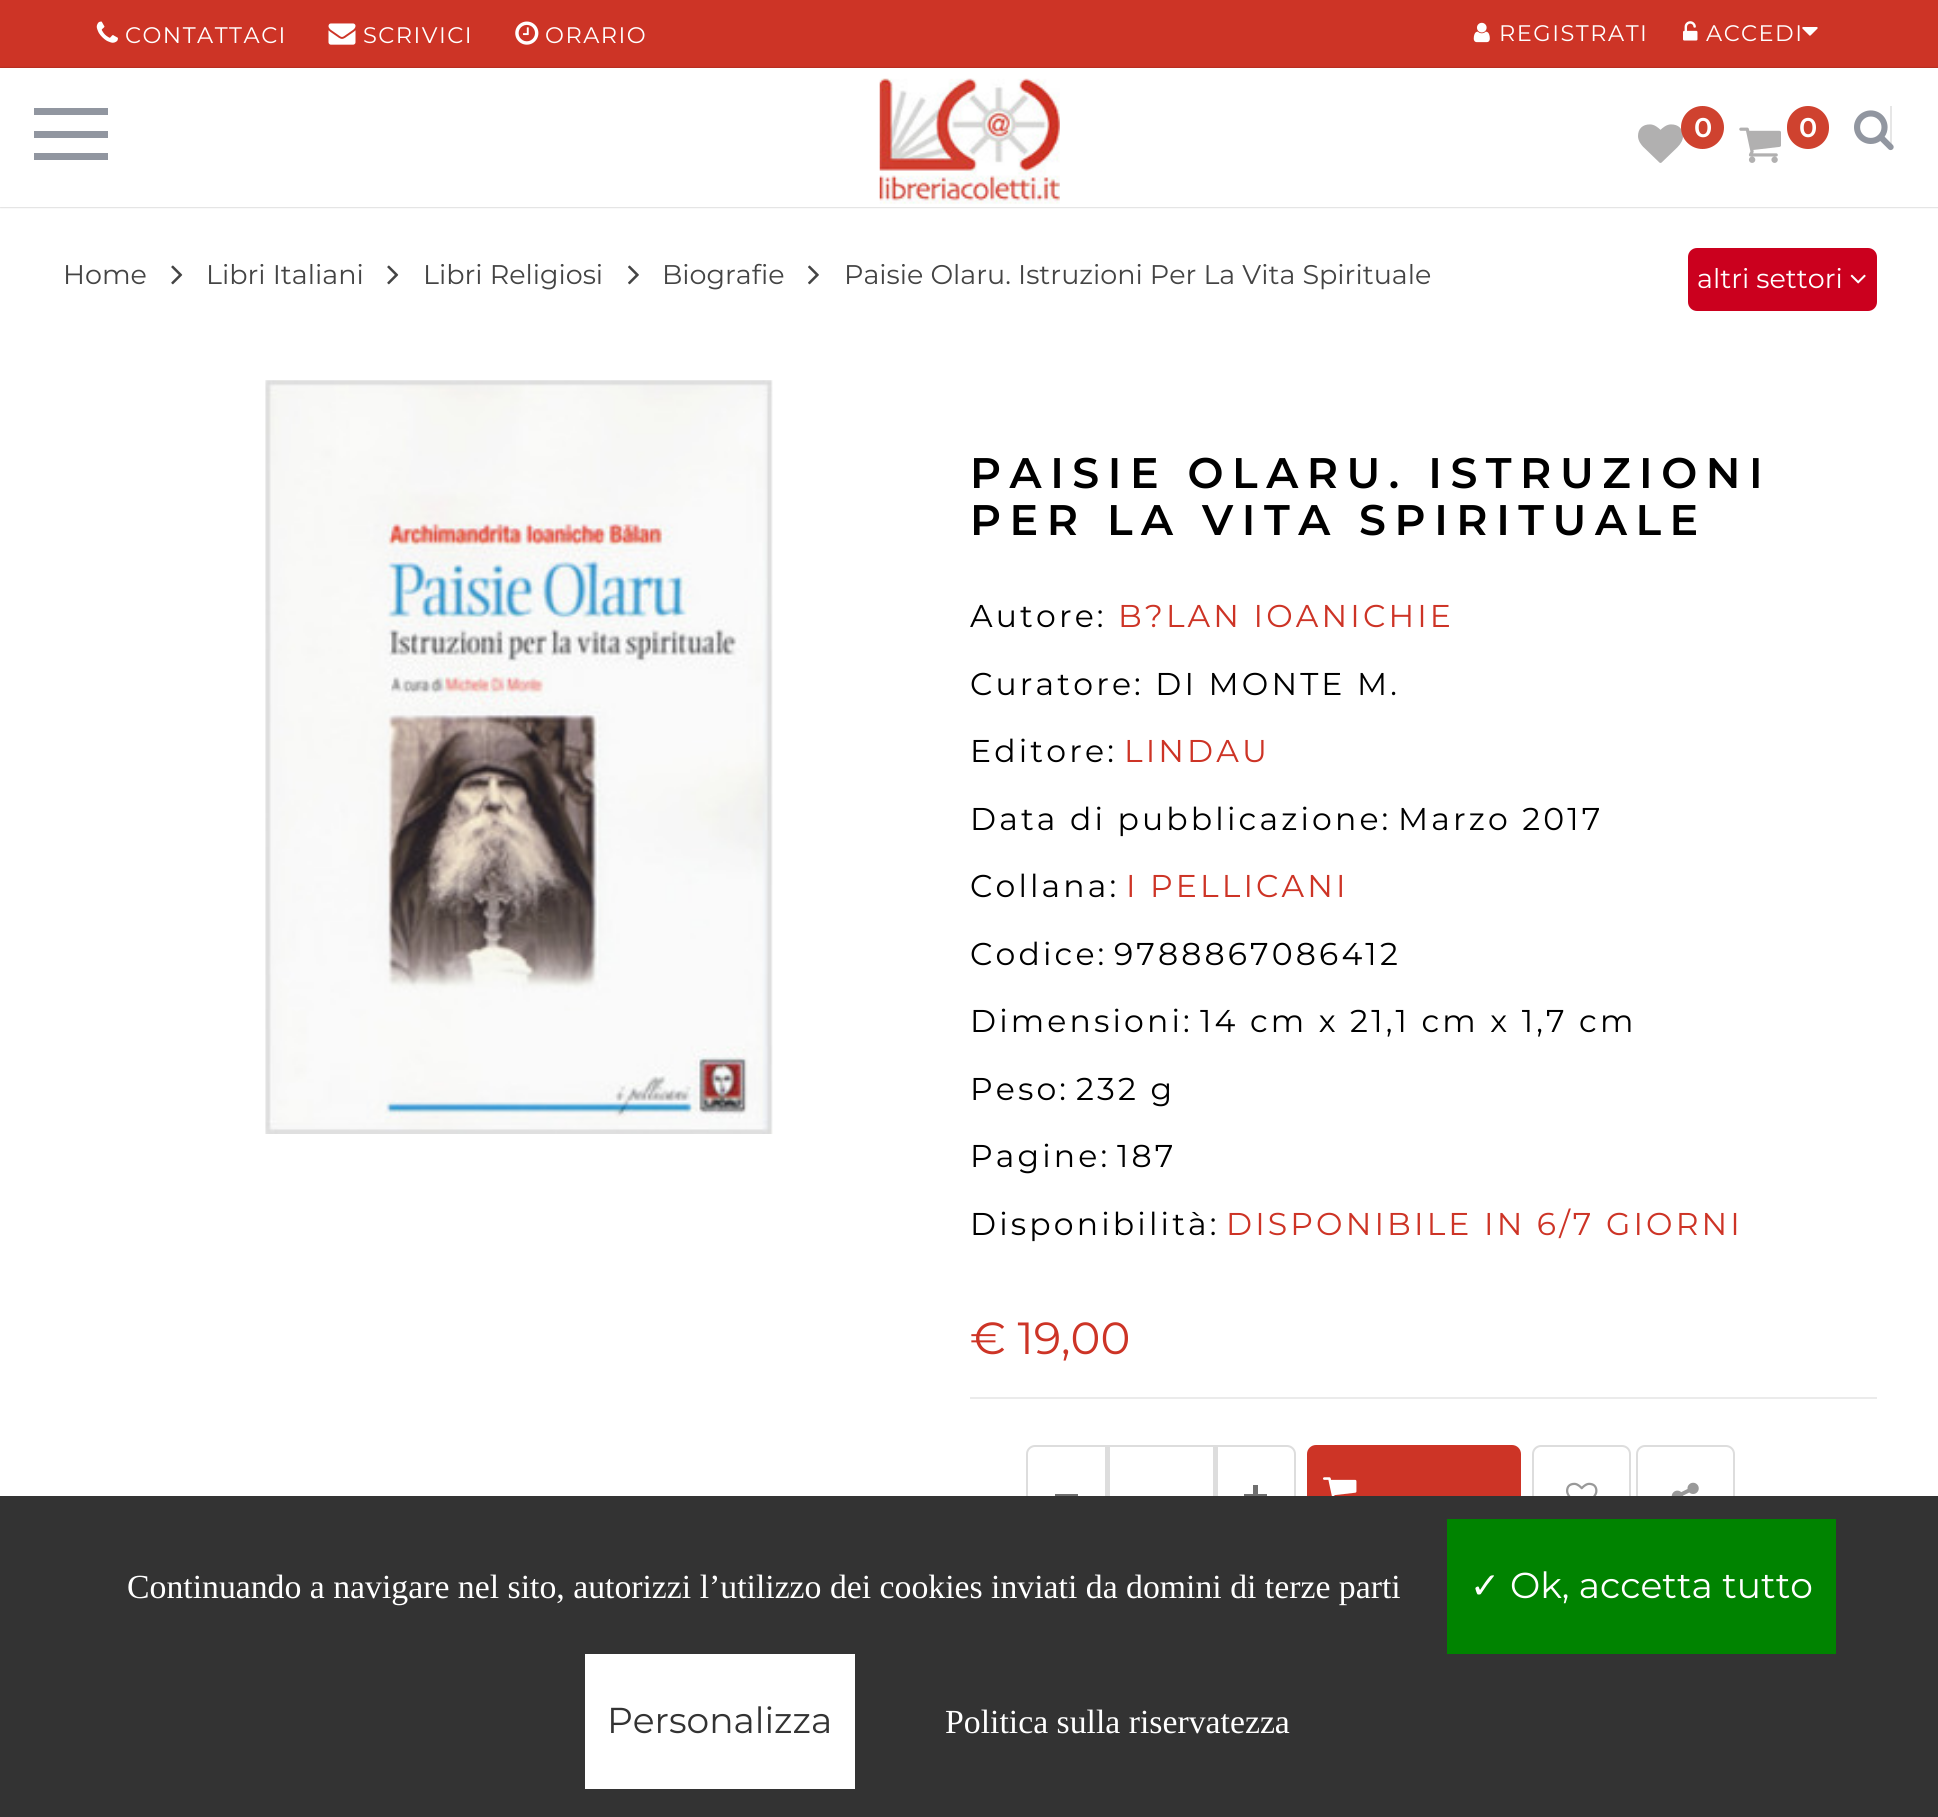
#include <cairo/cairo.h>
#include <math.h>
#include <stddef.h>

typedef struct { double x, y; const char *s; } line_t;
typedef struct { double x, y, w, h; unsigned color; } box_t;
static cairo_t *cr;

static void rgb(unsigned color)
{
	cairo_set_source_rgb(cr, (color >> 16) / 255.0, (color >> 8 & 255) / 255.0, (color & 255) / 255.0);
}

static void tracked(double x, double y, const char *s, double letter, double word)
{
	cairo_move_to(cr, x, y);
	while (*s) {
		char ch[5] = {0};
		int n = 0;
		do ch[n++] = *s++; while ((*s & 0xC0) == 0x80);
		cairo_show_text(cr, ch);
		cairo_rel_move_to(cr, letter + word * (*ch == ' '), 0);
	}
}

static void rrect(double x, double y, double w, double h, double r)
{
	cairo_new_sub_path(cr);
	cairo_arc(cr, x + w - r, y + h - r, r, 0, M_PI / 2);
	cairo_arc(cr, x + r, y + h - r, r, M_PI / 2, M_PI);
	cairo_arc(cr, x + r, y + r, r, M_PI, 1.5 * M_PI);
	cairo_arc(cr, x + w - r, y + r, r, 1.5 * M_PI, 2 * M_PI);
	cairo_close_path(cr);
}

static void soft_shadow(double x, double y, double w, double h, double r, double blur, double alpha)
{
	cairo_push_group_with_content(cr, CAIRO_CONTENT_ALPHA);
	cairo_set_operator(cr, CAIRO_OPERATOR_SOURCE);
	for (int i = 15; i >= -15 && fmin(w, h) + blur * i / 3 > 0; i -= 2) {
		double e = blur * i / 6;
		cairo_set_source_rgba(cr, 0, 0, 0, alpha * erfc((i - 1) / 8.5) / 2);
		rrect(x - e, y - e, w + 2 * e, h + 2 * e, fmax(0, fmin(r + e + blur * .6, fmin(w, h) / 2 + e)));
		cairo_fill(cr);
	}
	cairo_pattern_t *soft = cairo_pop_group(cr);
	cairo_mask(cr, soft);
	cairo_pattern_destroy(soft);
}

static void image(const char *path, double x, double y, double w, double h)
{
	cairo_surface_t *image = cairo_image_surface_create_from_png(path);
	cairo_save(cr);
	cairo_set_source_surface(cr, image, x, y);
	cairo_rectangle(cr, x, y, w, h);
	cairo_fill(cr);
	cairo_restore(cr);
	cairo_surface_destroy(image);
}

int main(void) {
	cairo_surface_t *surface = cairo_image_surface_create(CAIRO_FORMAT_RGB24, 1938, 1817);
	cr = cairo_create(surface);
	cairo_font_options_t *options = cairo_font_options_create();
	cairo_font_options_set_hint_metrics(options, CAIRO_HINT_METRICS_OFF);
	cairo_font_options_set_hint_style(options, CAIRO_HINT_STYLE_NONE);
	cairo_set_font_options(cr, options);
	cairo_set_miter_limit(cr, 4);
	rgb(0xffffff);
	cairo_paint(cr);
	rgb(0xcd3426);
	cairo_rectangle(cr, 0, 0, 1938, 68);
	cairo_fill(cr);
	image("img/1.png", 96, 21, 22, 22);
	image("img/2.png", 328, 23, 28, 22);
	image("img/3.png", 515, 21, 24, 24);
	image("img/4.png", 1473, 22, 17, 21);
	image("img/5.png", 1683, 21, 15, 20);
	image("img/6.png", 1802, 27, 16, 9);
	cairo_save(cr);
	cairo_set_fill_rule(cr, CAIRO_FILL_RULE_EVEN_ODD);
	cairo_new_path(cr);
	cairo_move_to(cr, 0, 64);
	cairo_line_to(cr, 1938, 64);
	cairo_line_to(cr, 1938, 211);
	cairo_line_to(cr, 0, 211);
	cairo_close_path(cr);
	cairo_move_to(cr, 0, 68);
	cairo_line_to(cr, 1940, 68);
	cairo_line_to(cr, 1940, 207);
	cairo_line_to(cr, 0, 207);
	cairo_close_path(cr);
	cairo_clip(cr);
	rgb(0x000000);
	soft_shadow(0, 68, 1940, 139, 0, 1, 0.3);
	cairo_restore(cr);
	{
		static const box_t items[] = {
			{34, 131, 74, 7, 0x9196a0},
			{34, 108, 74, 7, 0x9196a0},
			{34, 153, 74, 7, 0x9196a0},
		};
		for (size_t i = 0; i < sizeof items / sizeof *items; i++) {
			rgb(items[i].color);
			cairo_rectangle(cr, items[i].x, items[i].y, items[i].w, items[i].h);
			cairo_fill(cr);
		}
	}
	image("img/7.png", 879, 78, 181, 126);
	image("img/8.png", 1638, 124, 45, 39);
	rgb(0xcf422f);
	cairo_arc(cr, 1702.5, 127.5, 21.5, 0, 2 * M_PI);
	cairo_fill(cr);
	rgb(0xe6e6e6);
	cairo_rectangle(cr, 1890, 106, 2, 43);
	cairo_fill(cr);
	image("img/9.png", 1739, 127, 42, 36);
	rgb(0xcf422f);
	rrect(1787, 106, 42, 43, 21);
	cairo_fill(cr);
	image("img/10.png", 1854, 110, 40, 41);
	image("img/11.png", 171, 265, 12, 20);
	image("img/11.png", 387, 265, 12, 20);
	image("img/12.png", 628, 265, 11, 20);
	image("img/12.png", 808, 265, 11, 20);
	rgb(0xcb001e);
	rrect(1688, 248, 189, 63, 9);
	cairo_fill(cr);
	image("img/13.png", 1850, 274, 16, 10);
	image("img/14.png", 265, 380, 508, 754);
	rgb(0xebebeb);
	cairo_rectangle(cr, 970, 1397, 907, 2);
	cairo_fill(cr);
	rrect(1027, 1446, 268, 101, 8);
	rgb(0xdddddd);
	cairo_stroke(cr);
	{
		static const box_t items[] = {
			{1055, 1494, 23, 2, 0x6f6f6f},
			{1213, 1447, 5, 49, 0xdddddd},
			{1105, 1447, 5, 49, 0xdddddd},
			{1244, 1494, 23, 2, 0x6f6f6f},
			{1253, 1485, 5, 11, 0x6f6f6f},
		};
		for (size_t i = 0; i < sizeof items / sizeof *items; i++) {
			rgb(items[i].color);
			cairo_rectangle(cr, items[i].x, items[i].y, items[i].w, items[i].h);
			cairo_fill(cr);
		}
	}
	rgb(0xcd3426);
	rrect(1307, 1445, 214, 99, 9);
	cairo_fill(cr);
	image("img/15.png", 1323, 1477, 34, 19);
	rrect(1533, 1446, 97, 97, 8);
	rgb(0xdddddd);
	cairo_stroke(cr);
	image("img/16.png", 1566, 1482, 32, 14);
	rrect(1637, 1446, 97, 97, 8);
	cairo_stroke(cr);
	image("img/17.png", 1671, 1482, 28, 14);
	{
		static const box_t items[] = {
			{0, 1496, 1938, 321, 0x333333},
			{1447, 1519, 389, 135, 0x008300},
			{585, 1654, 270, 135, 0xffffff},
		};
		for (size_t i = 0; i < sizeof items / sizeof *items; i++) {
			rgb(items[i].color);
			cairo_rectangle(cr, items[i].x, items[i].y, items[i].w, items[i].h);
			cairo_fill(cr);
		}
	}
	cairo_select_font_face(cr, "Montserrat", CAIRO_FONT_SLANT_NORMAL, CAIRO_FONT_WEIGHT_NORMAL);
	cairo_set_font_size(cr, 22.5);
	{
		static const line_t items[] = {
			{125, 43, "CONTATTACI"},
			{363, 43, "SCRIVICI"},
			{545, 43, "ORARIO"},
			{1499, 41, "REGISTRATI"},
			{1706, 41, "ACCEDI"},
		};
		for (size_t i = 0; i < sizeof items / sizeof *items; i++) {
			tracked(items[i].x, items[i].y, items[i].s, 1.5, 0);
		}
	}
	cairo_select_font_face(cr, "Montserrat SemiBold", CAIRO_FONT_SLANT_NORMAL, CAIRO_FONT_WEIGHT_NORMAL);
	cairo_set_font_size(cr, 27);
	cairo_move_to(cr, 1694, 137);
	cairo_show_text(cr, "0");
	cairo_move_to(cr, 1799, 137);
	cairo_show_text(cr, "0");
	cairo_select_font_face(cr, "Montserrat", CAIRO_FONT_SLANT_NORMAL, CAIRO_FONT_WEIGHT_NORMAL);
	rgb(0x444444);
	{
		static const line_t items[] = {
			{63, 284, "Home"},
			{206, 284, "Libri Italiani"},
			{423, 284, "Libri Religiosi"},
			{662, 284, "Biografie"},
			{844, 284, "Paisie Olaru. Istruzioni Per La Vita Spirituale"},
		};
		for (size_t i = 0; i < sizeof items / sizeof *items; i++) {
			cairo_move_to(cr, items[i].x, items[i].y);
			cairo_show_text(cr, items[i].s);
		}
	}
	rgb(0xffffff);
	cairo_move_to(cr, 1697, 288);
	cairo_show_text(cr, "altri settori");
	cairo_select_font_face(cr, "Montserrat SemiBold", CAIRO_FONT_SLANT_NORMAL, CAIRO_FONT_WEIGHT_NORMAL);
	cairo_set_font_size(cr, 42.75);
	rgb(0x000000);
	tracked(970, 488, "PAISIE OLARU. ISTRUZIONI", 8.55, 0);
	tracked(970, 535, "PER LA VITA SPIRITUALE", 8.55, 0);
	cairo_select_font_face(cr, "Montserrat", CAIRO_FONT_SLANT_NORMAL, CAIRO_FONT_WEIGHT_NORMAL);
	cairo_set_font_size(cr, 31.5);
	tracked(970, 627, "Autore:", 3.15, 0);
	rgb(0xcd3426);
	tracked(1118, 627, "B?LAN IOANICHIE", 3.15, 0);
	rgb(0x000000);
	tracked(970, 695, "Curatore: DI MONTE M.", 3.15, 0);
	tracked(970, 762, "Editore:", 3.15, 0);
	rgb(0xcd3426);
	tracked(1124, 762, "LINDAU", 3.15, 0);
	rgb(0x000000);
	{
		static const line_t items[] = {
			{970, 830, "Data di pubblicazione:"},
			{1398, 830, "Marzo 2017"},
			{970, 897, "Collana:"},
		};
		for (size_t i = 0; i < sizeof items / sizeof *items; i++) {
			tracked(items[i].x, items[i].y, items[i].s, 3.15, 0);
		}
	}
	rgb(0xcd3426);
	tracked(1126, 897, "I PELLICANI", 3.15, 0);
	rgb(0x000000);
	{
		static const line_t items[] = {
			{970, 965, "Codice:"},
			{1114, 965, "9788867086412"},
			{970, 1032, "Dimensioni:"},
			{1200, 1032, "14 cm x 21,1 cm x 1,7 cm"},
			{970, 1100, "Peso:"},
			{1076, 1100, "232 g"},
			{970, 1167, "Pagine:"},
			{1117, 1167, "187"},
			{970, 1235, "Disponibilità:"},
		};
		for (size_t i = 0; i < sizeof items / sizeof *items; i++) {
			tracked(items[i].x, items[i].y, items[i].s, 3.15, 0);
		}
	}
	rgb(0xcd3426);
	tracked(1226, 1235, "DISPONIBILE IN 6/7 GIORNI", 3.15, 0);
	cairo_set_font_size(cr, 45);
	cairo_move_to(cr, 970, 1354);
	cairo_show_text(cr, "€ 19,00");
	cairo_select_font_face(cr, "Liberation Serif", CAIRO_FONT_SLANT_NORMAL, CAIRO_FONT_WEIGHT_NORMAL);
	cairo_set_font_size(cr, 33.75);
	rgb(0xffffff);
	cairo_move_to(cr, 127, 1598);
	cairo_show_text(cr, "Continuando a navigare nel sito, autorizzi l’utilizzo dei cookies inviati da domini di terze parti");
	cairo_select_font_face(cr, "DejaVu Sans", CAIRO_FONT_SLANT_NORMAL, CAIRO_FONT_WEIGHT_NORMAL);
	cairo_set_font_size(cr, 36);
	cairo_move_to(cr, 1470, 1598);
	cairo_show_text(cr, "✓");
	cairo_select_font_face(cr, "Montserrat", CAIRO_FONT_SLANT_NORMAL, CAIRO_FONT_WEIGHT_NORMAL);
	cairo_move_to(cr, 1510, 1598);
	cairo_show_text(cr, "Ok, accetta tutto");
	rgb(0x333333);
	cairo_move_to(cr, 607, 1733);
	cairo_show_text(cr, "Personalizza");
	cairo_select_font_face(cr, "Liberation Serif", CAIRO_FONT_SLANT_NORMAL, CAIRO_FONT_WEIGHT_NORMAL);
	cairo_set_font_size(cr, 33.75);
	rgb(0xffffff);
	cairo_move_to(cr, 945, 1733);
	cairo_show_text(cr, "Politica sulla riservatezza");
	cairo_surface_write_to_png(surface, "page.png");
	cairo_font_options_destroy(options);
	cairo_destroy(cr);
	cairo_surface_destroy(surface);
	return 0;
}
